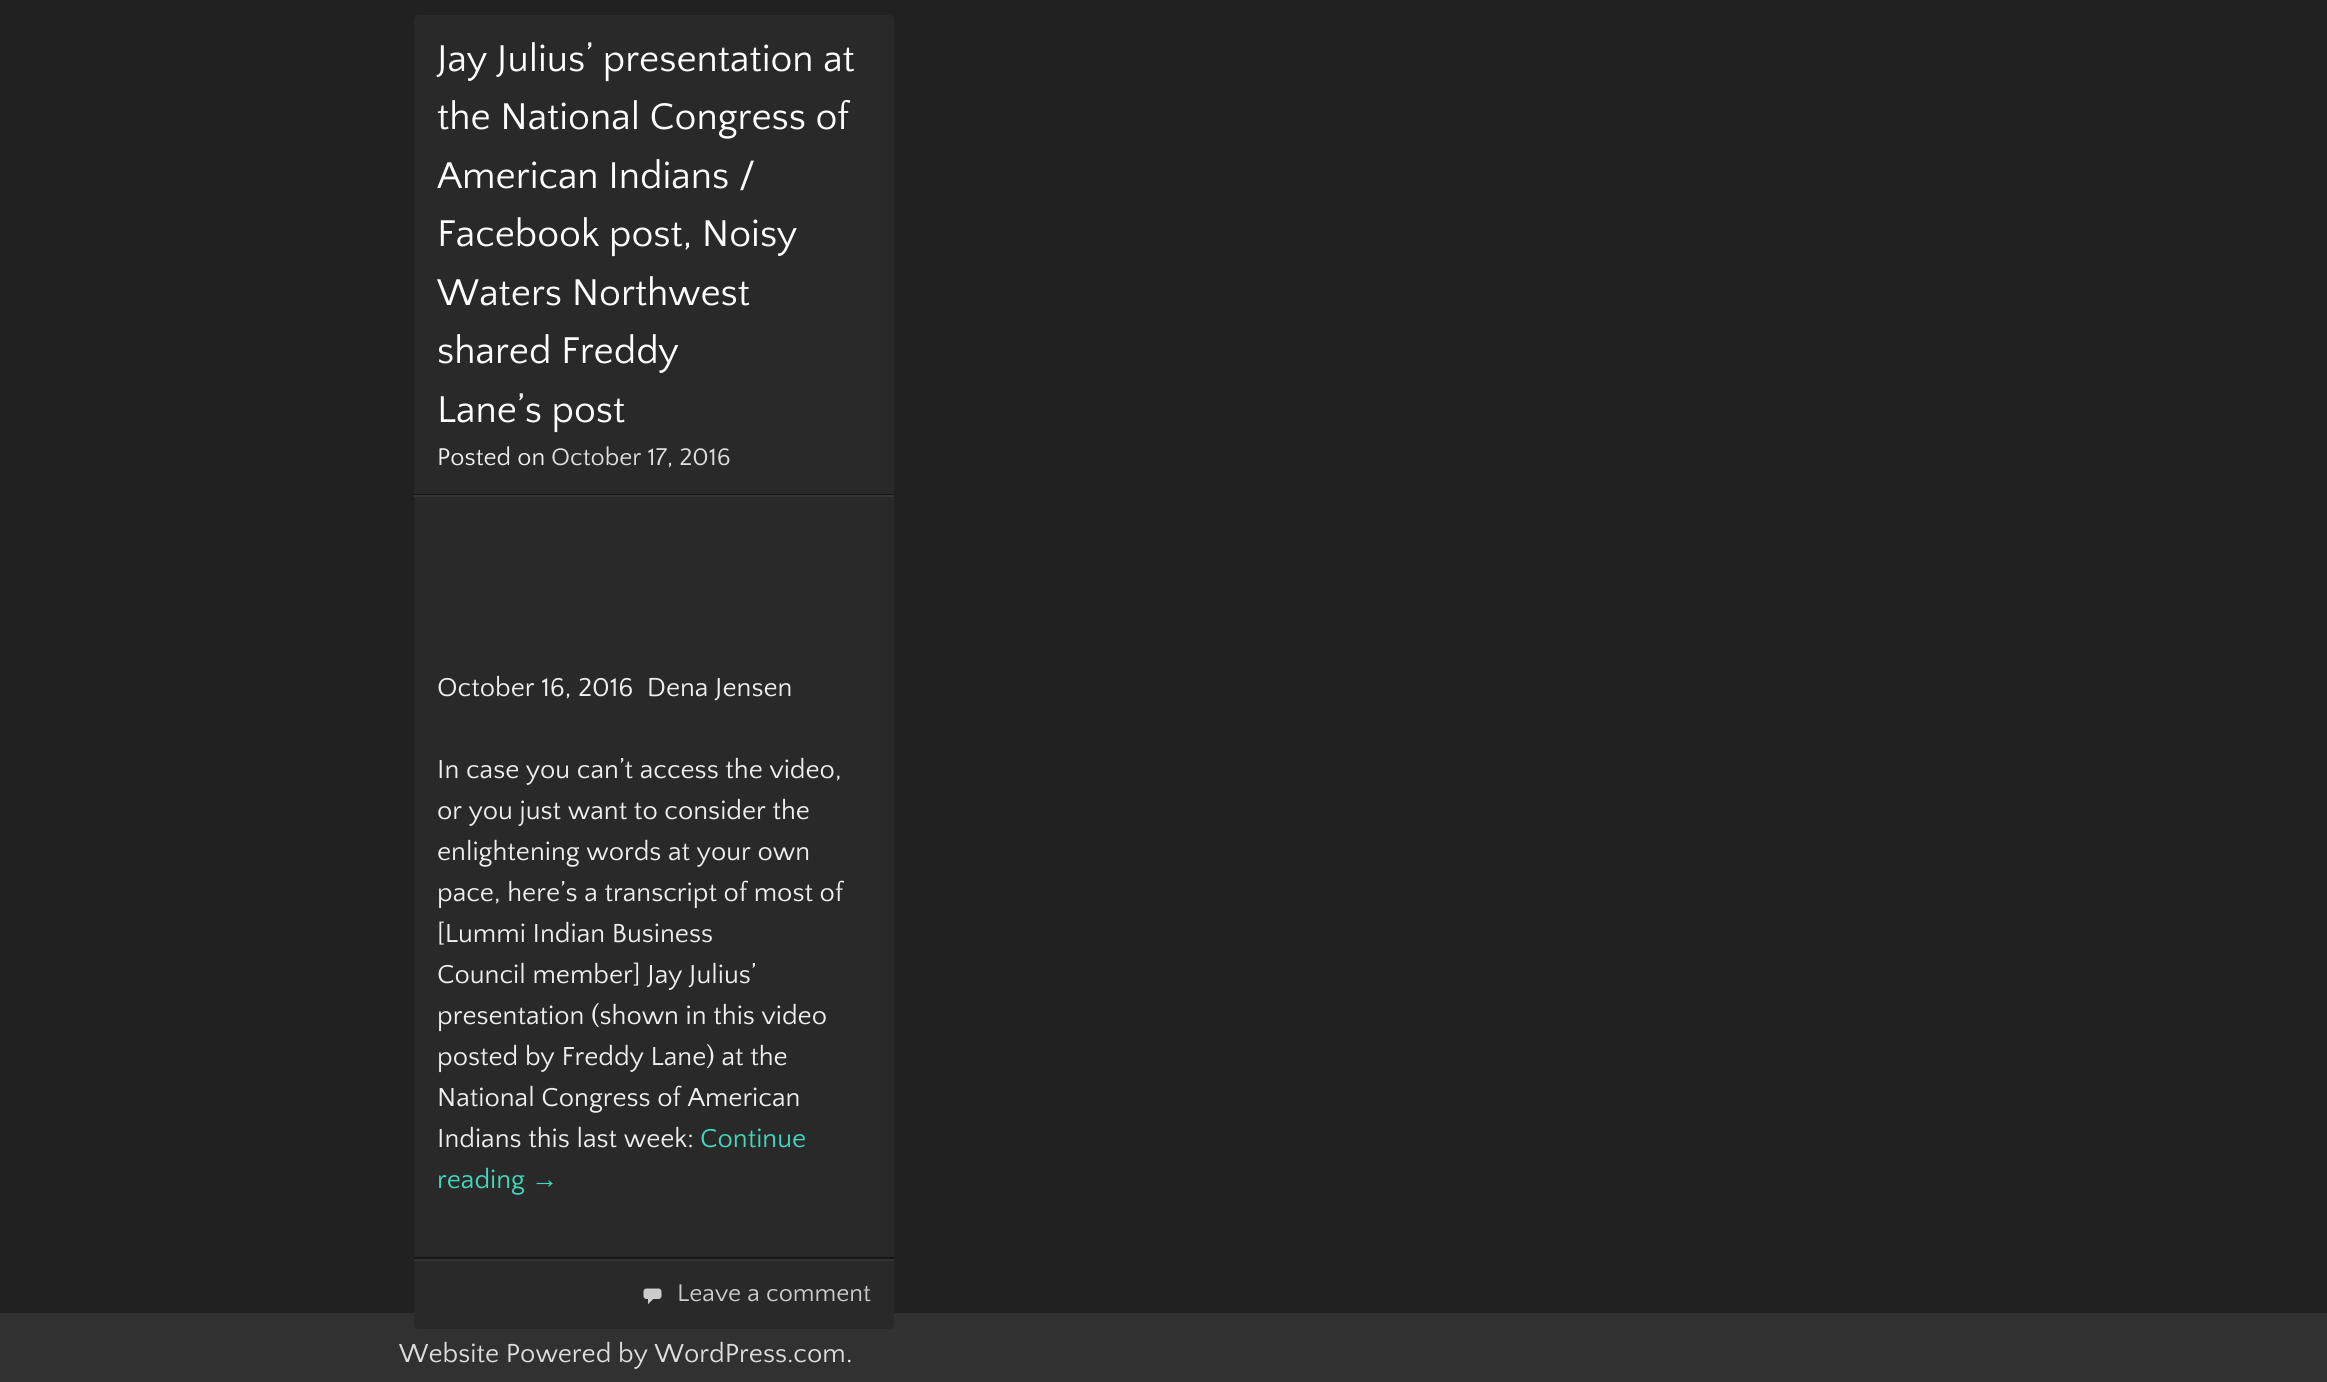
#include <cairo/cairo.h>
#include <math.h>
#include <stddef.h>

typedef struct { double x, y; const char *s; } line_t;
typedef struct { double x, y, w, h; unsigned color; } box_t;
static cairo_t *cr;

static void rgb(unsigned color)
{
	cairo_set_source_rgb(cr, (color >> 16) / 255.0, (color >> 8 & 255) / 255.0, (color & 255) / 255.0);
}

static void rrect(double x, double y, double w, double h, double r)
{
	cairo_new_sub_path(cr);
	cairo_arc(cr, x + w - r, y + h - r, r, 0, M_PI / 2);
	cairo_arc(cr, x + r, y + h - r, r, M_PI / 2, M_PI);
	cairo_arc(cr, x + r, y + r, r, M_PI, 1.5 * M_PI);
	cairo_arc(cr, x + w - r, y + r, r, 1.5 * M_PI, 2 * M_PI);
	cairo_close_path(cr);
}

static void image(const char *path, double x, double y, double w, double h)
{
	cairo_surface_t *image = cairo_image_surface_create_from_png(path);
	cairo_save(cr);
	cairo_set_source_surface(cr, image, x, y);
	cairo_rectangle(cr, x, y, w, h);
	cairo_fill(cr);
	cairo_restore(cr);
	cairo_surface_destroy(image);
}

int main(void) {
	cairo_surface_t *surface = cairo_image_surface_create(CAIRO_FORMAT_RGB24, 2327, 1382);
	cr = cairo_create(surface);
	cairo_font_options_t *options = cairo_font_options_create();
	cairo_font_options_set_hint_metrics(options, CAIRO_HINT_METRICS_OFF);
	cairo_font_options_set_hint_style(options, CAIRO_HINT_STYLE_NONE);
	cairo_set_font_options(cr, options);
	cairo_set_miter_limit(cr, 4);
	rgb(0x212121);
	cairo_paint(cr);
	rgb(0x313131);
	cairo_rectangle(cr, 0, 1313, 2327, 69);
	cairo_fill(cr);
	rgb(0x292929);
	rrect(414, 15, 480, 1314, 5);
	cairo_fill(cr);
	{
		static const box_t items[] = {
			{414, 494, 480, 1, 0x161616},
			{414, 495, 480, 2, 0x363636},
			{414, 1257, 480, 2, 0x161616},
			{414, 1259, 480, 2, 0x333333},
		};
		for (size_t i = 0; i < sizeof items / sizeof *items; i++) {
			rgb(items[i].color);
			cairo_rectangle(cr, items[i].x, items[i].y, items[i].w, items[i].h);
			cairo_fill(cr);
		}
	}
	image("img/1.png", 643, 1288, 19, 17);
	cairo_select_font_face(cr, "Quattrocento Sans", CAIRO_FONT_SLANT_NORMAL, CAIRO_FONT_WEIGHT_NORMAL);
	cairo_set_font_size(cr, 39);
	rgb(0xffffff);
	{
		static const line_t items[] = {
			{437, 71, "Jay Julius’ presentation at"},
			{437, 129, "the National Congress of"},
			{437, 188, "American Indians /"},
			{437, 246, "Facebook post, Noisy"},
			{437, 305, "Waters Northwest"},
			{437, 363, "shared Freddy"},
			{437, 422, "Lane’s post"},
		};
		for (size_t i = 0; i < sizeof items / sizeof *items; i++) {
			cairo_move_to(cr, items[i].x, items[i].y);
			cairo_show_text(cr, items[i].s);
		}
	}
	cairo_set_font_size(cr, 25.25);
	rgb(0xeeeeee);
	cairo_move_to(cr, 437, 465);
	cairo_show_text(cr, "Posted on");
	rgb(0xdddddd);
	cairo_move_to(cr, 551, 465);
	cairo_show_text(cr, "October 17, 2016");
	cairo_set_font_size(cr, 27.25);
	rgb(0xeeeeee);
	{
		static const line_t items[] = {
			{437, 696, "October 16, 2016  Dena Jensen"},
			{437, 778, "In case you can’t access the video,"},
			{437, 819, "or you just want to consider the"},
			{437, 860, "enlightening words at your own"},
			{437, 901, "pace, here’s a transcript of most of"},
			{437, 942, "[Lummi Indian Business"},
			{437, 983, "Council member] Jay Julius’"},
			{437, 1024, "presentation (shown in this video"},
			{437, 1065, "posted by Freddy Lane) at the"},
			{437, 1106, "National Congress of American"},
			{437, 1147, "Indians this last week:"},
		};
		for (size_t i = 0; i < sizeof items / sizeof *items; i++) {
			cairo_move_to(cr, items[i].x, items[i].y);
			cairo_show_text(cr, items[i].s);
		}
	}
	rgb(0x40d7bc);
	cairo_move_to(cr, 700, 1147);
	cairo_show_text(cr, "Continue");
	cairo_move_to(cr, 437, 1188);
	cairo_show_text(cr, "reading");
	cairo_select_font_face(cr, "Liberation Sans", CAIRO_FONT_SLANT_NORMAL, CAIRO_FONT_WEIGHT_NORMAL);
	cairo_move_to(cr, 531, 1188);
	cairo_show_text(cr, "→");
	cairo_select_font_face(cr, "Quattrocento Sans", CAIRO_FONT_SLANT_NORMAL, CAIRO_FONT_WEIGHT_NORMAL);
	cairo_set_font_size(cr, 25.25);
	rgb(0xcccccc);
	cairo_move_to(cr, 677, 1301);
	cairo_show_text(cr, "Leave a comment");
	cairo_set_font_size(cr, 27.25);
	rgb(0xdddddd);
	cairo_move_to(cr, 399, 1362);
	cairo_show_text(cr, "Website Powered by WordPress.com");
	rgb(0xeeeeee);
	cairo_move_to(cr, 846, 1362);
	cairo_show_text(cr, ".");
	cairo_surface_write_to_png(surface, "page.png");
	cairo_font_options_destroy(options);
	cairo_destroy(cr);
	cairo_surface_destroy(surface);
	return 0;
}
